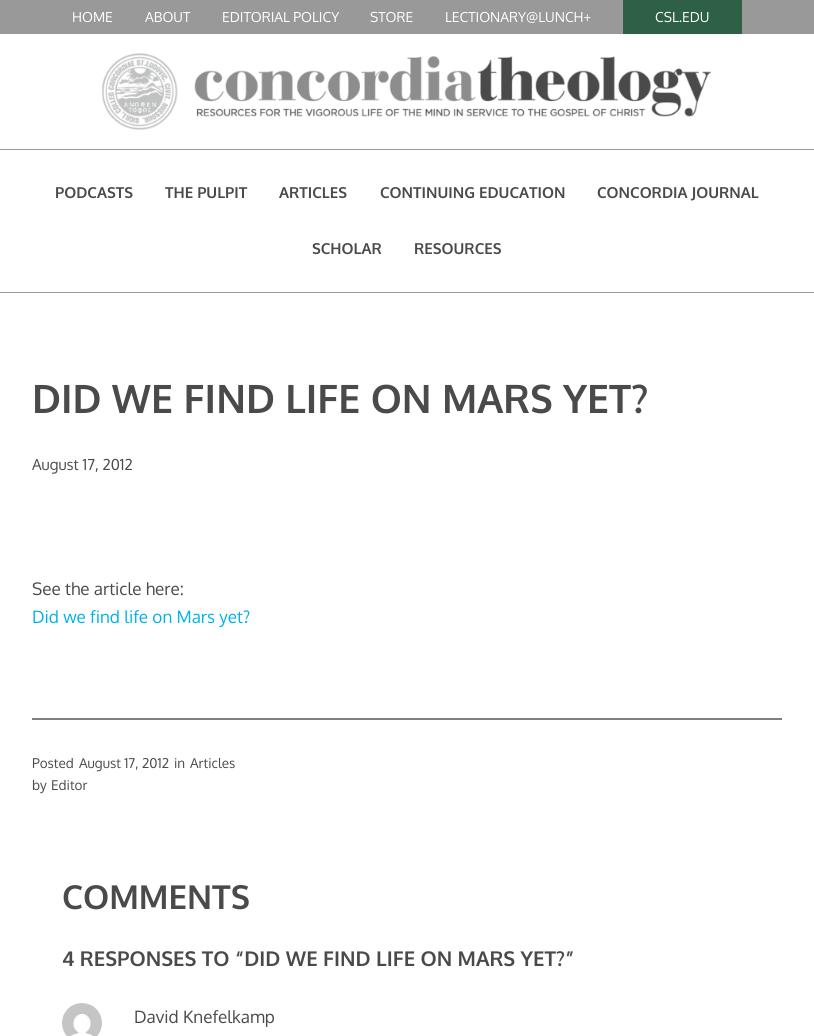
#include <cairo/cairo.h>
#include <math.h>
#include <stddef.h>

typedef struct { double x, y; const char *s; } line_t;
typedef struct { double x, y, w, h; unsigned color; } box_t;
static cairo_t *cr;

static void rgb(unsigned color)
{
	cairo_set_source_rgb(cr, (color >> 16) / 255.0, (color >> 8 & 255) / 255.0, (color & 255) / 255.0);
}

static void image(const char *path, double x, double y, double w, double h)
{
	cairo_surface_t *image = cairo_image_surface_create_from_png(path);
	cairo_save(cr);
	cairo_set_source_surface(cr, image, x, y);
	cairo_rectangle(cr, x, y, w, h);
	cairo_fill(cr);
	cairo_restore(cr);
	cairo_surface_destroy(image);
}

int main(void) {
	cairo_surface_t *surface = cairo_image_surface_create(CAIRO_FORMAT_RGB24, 814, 1036);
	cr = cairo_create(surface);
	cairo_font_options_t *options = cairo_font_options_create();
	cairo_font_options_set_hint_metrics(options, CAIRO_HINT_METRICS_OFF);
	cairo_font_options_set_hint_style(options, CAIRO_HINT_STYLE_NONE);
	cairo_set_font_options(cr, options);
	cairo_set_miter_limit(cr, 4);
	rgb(0xffffff);
	cairo_paint(cr);
	{
		static const box_t items[] = {
			{0, 0, 814, 34, 0x999999},
			{623, 0, 119, 34, 0x2d6044},
			{0, 149, 814, 1, 0x999999},
		};
		for (size_t i = 0; i < sizeof items / sizeof *items; i++) {
			rgb(items[i].color);
			cairo_rectangle(cr, items[i].x, items[i].y, items[i].w, items[i].h);
			cairo_fill(cr);
		}
	}
	image("img/1.png", 102, 53, 610, 77);
	cairo_rectangle(cr, 0, 292, 814, 1);
	cairo_fill(cr);
	rgb(0x808080);
	cairo_rectangle(cr, 32, 718, 750, 2);
	cairo_fill(cr);
	image("img/2.png", 62, 1003, 40, 33);
	cairo_select_font_face(cr, "Oxygen", CAIRO_FONT_SLANT_NORMAL, CAIRO_FONT_WEIGHT_NORMAL);
	cairo_set_font_size(cr, 13.75);
	rgb(0xffffff);
	{
		static const line_t items[] = {
			{72, 22, "HOME"},
			{145, 22, "ABOUT"},
			{222, 22, "EDITORIAL POLICY"},
			{370, 22, "STORE"},
			{445, 22, "LECTIONARY@LUNCH+"},
			{655, 22, "CSL.EDU"},
		};
		for (size_t i = 0; i < sizeof items / sizeof *items; i++) {
			cairo_move_to(cr, items[i].x, items[i].y);
			cairo_show_text(cr, items[i].s);
		}
	}
	cairo_select_font_face(cr, "Oxygen", CAIRO_FONT_SLANT_NORMAL, CAIRO_FONT_WEIGHT_BOLD);
	cairo_set_font_size(cr, 15.1);
	rgb(0x4a4a4a);
	{
		static const line_t items[] = {
			{55, 198, "PODCASTS"},
			{165, 198, "THE PULPIT"},
			{279, 198, "ARTICLES"},
			{380, 198, "CONTINUING EDUCATION"},
			{597, 198, "CONCORDIA JOURNAL"},
			{312, 254, "SCHOLAR"},
			{414, 254, "RESOURCES"},
		};
		for (size_t i = 0; i < sizeof items / sizeof *items; i++) {
			cairo_move_to(cr, items[i].x, items[i].y);
			cairo_show_text(cr, items[i].s);
		}
	}
	cairo_set_font_size(cr, 39.2);
	cairo_move_to(cr, 32, 413);
	cairo_show_text(cr, "DID WE FIND LIFE ON MARS YET?");
	cairo_select_font_face(cr, "Oxygen", CAIRO_FONT_SLANT_NORMAL, CAIRO_FONT_WEIGHT_NORMAL);
	cairo_set_font_size(cr, 15.1);
	cairo_move_to(cr, 32, 470);
	cairo_show_text(cr, "August 17, 2012");
	cairo_set_font_size(cr, 17.1);
	cairo_move_to(cr, 32, 595);
	cairo_show_text(cr, "See the article here:");
	rgb(0x00b2eb);
	cairo_move_to(cr, 32, 623);
	cairo_show_text(cr, "Did we find life on Mars yet?");
	cairo_set_font_size(cr, 13.5);
	rgb(0x4a4a4a);
	{
		static const line_t items[] = {
			{32, 768, "Posted"},
			{79, 768, "August 17, 2012"},
			{174, 768, "in"},
			{190, 768, "Articles"},
			{32, 790, "by"},
			{51, 790, "Editor"},
		};
		for (size_t i = 0; i < sizeof items / sizeof *items; i++) {
			cairo_move_to(cr, items[i].x, items[i].y);
			cairo_show_text(cr, items[i].s);
		}
	}
	cairo_select_font_face(cr, "Oxygen", CAIRO_FONT_SLANT_NORMAL, CAIRO_FONT_WEIGHT_BOLD);
	cairo_set_font_size(cr, 33);
	cairo_move_to(cr, 62, 909);
	cairo_show_text(cr, "COMMENTS");
	cairo_set_font_size(cr, 20.4);
	cairo_move_to(cr, 62, 966);
	cairo_show_text(cr, "4 RESPONSES TO “DID WE FIND LIFE ON MARS YET?”");
	cairo_select_font_face(cr, "Oxygen", CAIRO_FONT_SLANT_NORMAL, CAIRO_FONT_WEIGHT_NORMAL);
	cairo_set_font_size(cr, 17.1);
	cairo_move_to(cr, 134, 1023);
	cairo_show_text(cr, "David Knefelkamp");
	cairo_surface_write_to_png(surface, "page.png");
	cairo_font_options_destroy(options);
	cairo_destroy(cr);
	cairo_surface_destroy(surface);
	return 0;
}
